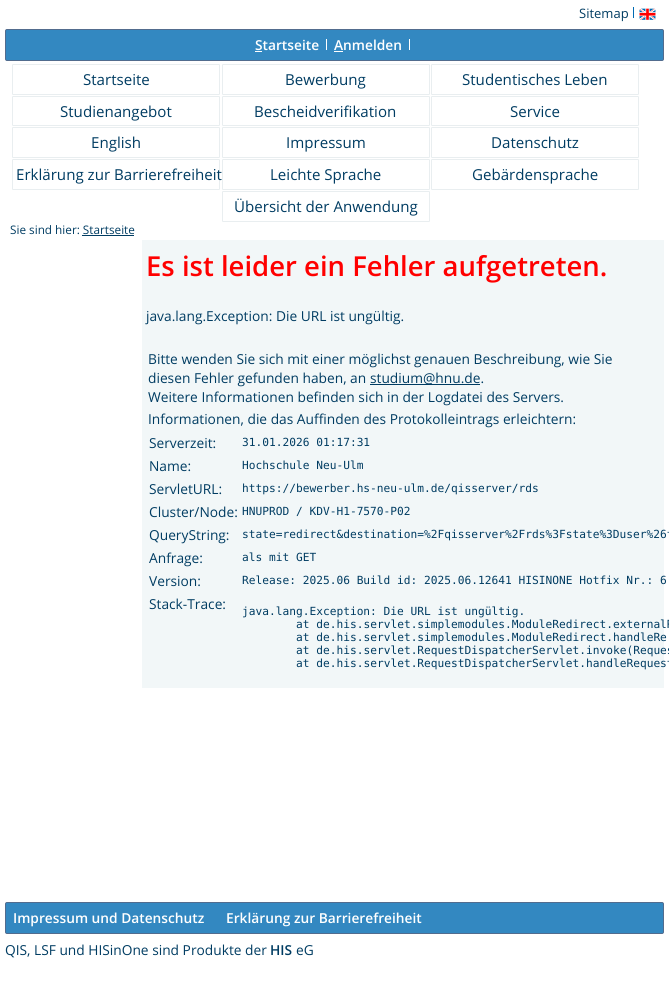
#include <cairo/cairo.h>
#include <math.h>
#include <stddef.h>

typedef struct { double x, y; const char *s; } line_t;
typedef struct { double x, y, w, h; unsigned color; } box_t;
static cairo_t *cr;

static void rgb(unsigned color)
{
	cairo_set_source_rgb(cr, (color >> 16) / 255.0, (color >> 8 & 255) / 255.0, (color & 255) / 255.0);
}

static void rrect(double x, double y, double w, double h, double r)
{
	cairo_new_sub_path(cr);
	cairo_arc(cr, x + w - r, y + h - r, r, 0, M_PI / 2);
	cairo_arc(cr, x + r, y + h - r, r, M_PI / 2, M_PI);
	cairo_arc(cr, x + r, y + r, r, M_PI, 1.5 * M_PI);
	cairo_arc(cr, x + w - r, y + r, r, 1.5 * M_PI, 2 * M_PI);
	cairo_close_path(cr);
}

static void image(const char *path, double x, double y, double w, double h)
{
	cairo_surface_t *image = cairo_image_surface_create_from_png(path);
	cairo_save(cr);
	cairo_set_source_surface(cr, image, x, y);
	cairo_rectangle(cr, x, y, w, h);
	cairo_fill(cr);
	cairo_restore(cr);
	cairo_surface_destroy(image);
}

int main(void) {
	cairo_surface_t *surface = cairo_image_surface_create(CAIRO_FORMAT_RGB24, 669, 984);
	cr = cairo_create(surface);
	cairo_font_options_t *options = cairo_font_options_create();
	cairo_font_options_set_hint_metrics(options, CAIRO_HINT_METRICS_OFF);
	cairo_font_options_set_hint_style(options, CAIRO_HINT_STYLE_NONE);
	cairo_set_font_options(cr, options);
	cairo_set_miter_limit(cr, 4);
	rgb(0xffffff);
	cairo_paint(cr);
	rgb(0x006ab3);
	cairo_rectangle(cr, 633, 7, 1, 11);
	cairo_fill(cr);
	image("img/1.png", 639, 8, 17, 12);
	rgb(0x3388c1);
	rrect(5.5, 29.5, 658, 31, 1.5);
	cairo_fill_preserve(cr);
	rgb(0x526c8e);
	cairo_set_line_width(cr, 1);
	cairo_stroke(cr);
	{
		static const box_t items[] = {
			{255, 51, 7, 1, 0xffffff},
			{326, 39, 1, 11, 0xffffff},
			{334, 51, 9, 1, 0xffffff},
			{409, 39, 1, 11, 0xffffff},
		};
		for (size_t i = 0; i < sizeof items / sizeof *items; i++) {
			rgb(items[i].color);
			cairo_rectangle(cr, items[i].x, items[i].y, items[i].w, items[i].h);
			cairo_fill(cr);
		}
	}
	rrect(12.5, 64.5, 207, 30, 0.5);
	rgb(0xe9eef0);
	cairo_stroke(cr);
	rrect(222.5, 64.5, 207, 30, 0.5);
	cairo_stroke(cr);
	rrect(431.5, 64.5, 207, 30, 0.5);
	cairo_stroke(cr);
	rrect(12.5, 96.5, 207, 29, 0.5);
	cairo_stroke(cr);
	rrect(222.5, 96.5, 207, 29, 0.5);
	cairo_stroke(cr);
	rrect(431.5, 96.5, 207, 29, 0.5);
	cairo_stroke(cr);
	rrect(12.5, 127.5, 207, 30, 0.5);
	cairo_stroke(cr);
	rrect(222.5, 127.5, 207, 30, 0.5);
	cairo_stroke(cr);
	rrect(431.5, 127.5, 207, 30, 0.5);
	cairo_stroke(cr);
	rrect(12.5, 159.5, 207, 30, 0.5);
	cairo_stroke(cr);
	rrect(431.5, 159.5, 207, 30, 0.5);
	cairo_stroke(cr);
	rrect(222.5, 191.5, 207, 30, 0.5);
	cairo_stroke(cr);
	{
		static const box_t items[] = {
			{82, 235, 52, 1, 0x003c62},
			{142, 240, 522, 448, 0xf2f7f8},
			{370, 384, 110, 1, 0x003c62},
		};
		for (size_t i = 0; i < sizeof items / sizeof *items; i++) {
			rgb(items[i].color);
			cairo_rectangle(cr, items[i].x, items[i].y, items[i].w, items[i].h);
			cairo_fill(cr);
		}
	}
	rgb(0x3388c1);
	rrect(5.5, 902.5, 658, 31, 1.5);
	cairo_fill_preserve(cr);
	rgb(0x526c8e);
	cairo_stroke(cr);
	cairo_select_font_face(cr, "Open Sans", CAIRO_FONT_SLANT_NORMAL, CAIRO_FONT_WEIGHT_NORMAL);
	cairo_set_font_size(cr, 13);
	rgb(0x003c62);
	cairo_move_to(cr, 579, 18);
	cairo_show_text(cr, "Sitemap");
	cairo_select_font_face(cr, "Open Sans SemiBold", CAIRO_FONT_SLANT_NORMAL, CAIRO_FONT_WEIGHT_NORMAL);
	cairo_set_font_size(cr, 13.75);
	rgb(0xffffff);
	cairo_move_to(cr, 255, 50);
	cairo_show_text(cr, "Startseite");
	cairo_move_to(cr, 334, 50);
	cairo_show_text(cr, "Anmelden");
	cairo_select_font_face(cr, "Open Sans", CAIRO_FONT_SLANT_NORMAL, CAIRO_FONT_WEIGHT_NORMAL);
	cairo_set_font_size(cr, 15.1);
	rgb(0x003c62);
	{
		static const line_t items[] = {
			{83, 85, "Startseite"},
			{285, 85, "Bewerbung"},
			{462, 85, "Studentisches Leben"},
			{60, 117, "Studienangebot"},
			{254, 117, "Bescheidverifikation"},
			{510, 117, "Service"},
			{91, 148, "English"},
			{286, 148, "Impressum"},
			{491, 148, "Datenschutz"},
			{16, 180, "Erklärung zur Barrierefreiheit"},
		};
		for (size_t i = 0; i < sizeof items / sizeof *items; i++) {
			cairo_move_to(cr, items[i].x, items[i].y);
			cairo_show_text(cr, items[i].s);
		}
	}
	rrect(222.5, 159.5, 207, 30, 0.5);
	rgb(0xe9eef0);
	cairo_stroke(cr);
	rgb(0x003c62);
	{
		static const line_t items[] = {
			{270, 180, "Leichte Sprache"},
			{472, 180, "Gebärdensprache"},
			{234, 212, "Übersicht der Anwendung"},
		};
		for (size_t i = 0; i < sizeof items / sizeof *items; i++) {
			cairo_move_to(cr, items[i].x, items[i].y);
			cairo_show_text(cr, items[i].s);
		}
	}
	cairo_set_font_size(cr, 11.75);
	cairo_move_to(cr, 10, 234);
	cairo_show_text(cr, "Sie sind hier: Startseite");
	cairo_select_font_face(cr, "Open Sans SemiBold", CAIRO_FONT_SLANT_NORMAL, CAIRO_FONT_WEIGHT_NORMAL);
	cairo_set_font_size(cr, 27.5);
	rgb(0xff0000);
	cairo_move_to(cr, 146, 276);
	cairo_show_text(cr, "Es ist leider ein Fehler aufgetreten.");
	cairo_select_font_face(cr, "Open Sans", CAIRO_FONT_SLANT_NORMAL, CAIRO_FONT_WEIGHT_NORMAL);
	cairo_set_font_size(cr, 13.75);
	rgb(0x003c62);
	{
		static const line_t items[] = {
			{146, 321, "java.lang.Exception: Die URL ist ungültig."},
			{148, 364, "Bitte wenden Sie sich mit einer möglichst genauen Beschreibung, wie Sie"},
			{148, 383, "diesen Fehler gefunden haben, an"},
			{370, 383, "studium@hnu.de."},
			{148, 402, "Weitere Informationen befinden sich in der Logdatei des Servers."},
			{148, 424, "Informationen, die das Auffinden des Protokolleintrags erleichtern:"},
			{149, 448, "Serverzeit:"},
		};
		for (size_t i = 0; i < sizeof items / sizeof *items; i++) {
			cairo_move_to(cr, items[i].x, items[i].y);
			cairo_show_text(cr, items[i].s);
		}
	}
	cairo_select_font_face(cr, "DejaVu Sans Mono", CAIRO_FONT_SLANT_NORMAL, CAIRO_FONT_WEIGHT_NORMAL);
	cairo_set_font_size(cr, 11.2);
	cairo_move_to(cr, 242, 446);
	cairo_show_text(cr, "31.01.2026 01:17:31");
	cairo_select_font_face(cr, "Open Sans", CAIRO_FONT_SLANT_NORMAL, CAIRO_FONT_WEIGHT_NORMAL);
	cairo_set_font_size(cr, 13.75);
	cairo_move_to(cr, 149, 471);
	cairo_show_text(cr, "Name:");
	cairo_select_font_face(cr, "DejaVu Sans Mono", CAIRO_FONT_SLANT_NORMAL, CAIRO_FONT_WEIGHT_NORMAL);
	cairo_set_font_size(cr, 11.2);
	cairo_move_to(cr, 242, 469);
	cairo_show_text(cr, "Hochschule Neu-Ulm");
	cairo_select_font_face(cr, "Open Sans", CAIRO_FONT_SLANT_NORMAL, CAIRO_FONT_WEIGHT_NORMAL);
	cairo_set_font_size(cr, 13.75);
	cairo_move_to(cr, 149, 494);
	cairo_show_text(cr, "ServletURL:");
	cairo_select_font_face(cr, "DejaVu Sans Mono", CAIRO_FONT_SLANT_NORMAL, CAIRO_FONT_WEIGHT_NORMAL);
	cairo_set_font_size(cr, 11.2);
	cairo_move_to(cr, 242, 492);
	cairo_show_text(cr, "https://bewerber.hs-neu-ulm.de/qisserver/rds");
	cairo_select_font_face(cr, "Open Sans", CAIRO_FONT_SLANT_NORMAL, CAIRO_FONT_WEIGHT_NORMAL);
	cairo_set_font_size(cr, 13.75);
	cairo_move_to(cr, 149, 517);
	cairo_show_text(cr, "Cluster/Node:");
	cairo_select_font_face(cr, "DejaVu Sans Mono", CAIRO_FONT_SLANT_NORMAL, CAIRO_FONT_WEIGHT_NORMAL);
	cairo_set_font_size(cr, 11.2);
	cairo_move_to(cr, 242, 515);
	cairo_show_text(cr, "HNUPROD / KDV-H1-7570-P02");
	cairo_select_font_face(cr, "Open Sans", CAIRO_FONT_SLANT_NORMAL, CAIRO_FONT_WEIGHT_NORMAL);
	cairo_set_font_size(cr, 13.75);
	cairo_move_to(cr, 149, 540);
	cairo_show_text(cr, "QueryString:");
	cairo_select_font_face(cr, "DejaVu Sans Mono", CAIRO_FONT_SLANT_NORMAL, CAIRO_FONT_WEIGHT_NORMAL);
	cairo_set_font_size(cr, 11.2);
	cairo_move_to(cr, 242, 538);
	cairo_show_text(cr, "state=redirect&destination=%2Fqisserver%2Frds%3Fstate%3Duser%26t");
	cairo_select_font_face(cr, "Open Sans", CAIRO_FONT_SLANT_NORMAL, CAIRO_FONT_WEIGHT_NORMAL);
	cairo_set_font_size(cr, 13.75);
	cairo_move_to(cr, 149, 563);
	cairo_show_text(cr, "Anfrage:");
	cairo_select_font_face(cr, "DejaVu Sans Mono", CAIRO_FONT_SLANT_NORMAL, CAIRO_FONT_WEIGHT_NORMAL);
	cairo_set_font_size(cr, 11.2);
	cairo_move_to(cr, 242, 561);
	cairo_show_text(cr, "als mit GET");
	cairo_select_font_face(cr, "Open Sans", CAIRO_FONT_SLANT_NORMAL, CAIRO_FONT_WEIGHT_NORMAL);
	cairo_set_font_size(cr, 13.75);
	cairo_move_to(cr, 149, 586);
	cairo_show_text(cr, "Version:");
	cairo_select_font_face(cr, "DejaVu Sans Mono", CAIRO_FONT_SLANT_NORMAL, CAIRO_FONT_WEIGHT_NORMAL);
	cairo_set_font_size(cr, 11.2);
	cairo_move_to(cr, 242, 584);
	cairo_show_text(cr, "Release: 2025.06 Build id: 2025.06.12641 HISINONE Hotfix Nr.: 6");
	cairo_select_font_face(cr, "Open Sans", CAIRO_FONT_SLANT_NORMAL, CAIRO_FONT_WEIGHT_NORMAL);
	cairo_set_font_size(cr, 13.75);
	cairo_move_to(cr, 149, 609);
	cairo_show_text(cr, "Stack-Trace:");
	cairo_select_font_face(cr, "DejaVu Sans Mono", CAIRO_FONT_SLANT_NORMAL, CAIRO_FONT_WEIGHT_NORMAL);
	cairo_set_font_size(cr, 11.2);
	{
		static const line_t items[] = {
			{242, 615, "java.lang.Exception: Die URL ist ungültig."},
			{296, 628, "at de.his.servlet.simplemodules.ModuleRedirect.externalR"},
			{296, 641, "at de.his.servlet.simplemodules.ModuleRedirect.handleRe"},
			{296, 654, "at de.his.servlet.RequestDispatcherServlet.invoke(Reques"},
			{296, 667, "at de.his.servlet.RequestDispatcherServlet.handleRequest"},
		};
		for (size_t i = 0; i < sizeof items / sizeof *items; i++) {
			cairo_move_to(cr, items[i].x, items[i].y);
			cairo_show_text(cr, items[i].s);
		}
	}
	cairo_select_font_face(cr, "Open Sans SemiBold", CAIRO_FONT_SLANT_NORMAL, CAIRO_FONT_WEIGHT_NORMAL);
	cairo_set_font_size(cr, 13.75);
	rgb(0xffffff);
	cairo_move_to(cr, 13, 923);
	cairo_show_text(cr, "Impressum und Datenschutz");
	cairo_move_to(cr, 226, 923);
	cairo_show_text(cr, "Erklärung zur Barrierefreiheit");
	cairo_select_font_face(cr, "Open Sans", CAIRO_FONT_SLANT_NORMAL, CAIRO_FONT_WEIGHT_NORMAL);
	rgb(0x003c62);
	cairo_move_to(cr, 5, 955);
	cairo_show_text(cr, "QIS, LSF und HISinOne sind Produkte der");
	cairo_select_font_face(cr, "Open Sans SemiBold", CAIRO_FONT_SLANT_NORMAL, CAIRO_FONT_WEIGHT_NORMAL);
	cairo_move_to(cr, 270, 955);
	cairo_show_text(cr, "HIS");
	cairo_select_font_face(cr, "Open Sans", CAIRO_FONT_SLANT_NORMAL, CAIRO_FONT_WEIGHT_NORMAL);
	cairo_move_to(cr, 296, 955);
	cairo_show_text(cr, "eG");
	cairo_surface_write_to_png(surface, "page.png");
	cairo_font_options_destroy(options);
	cairo_destroy(cr);
	cairo_surface_destroy(surface);
	return 0;
}
